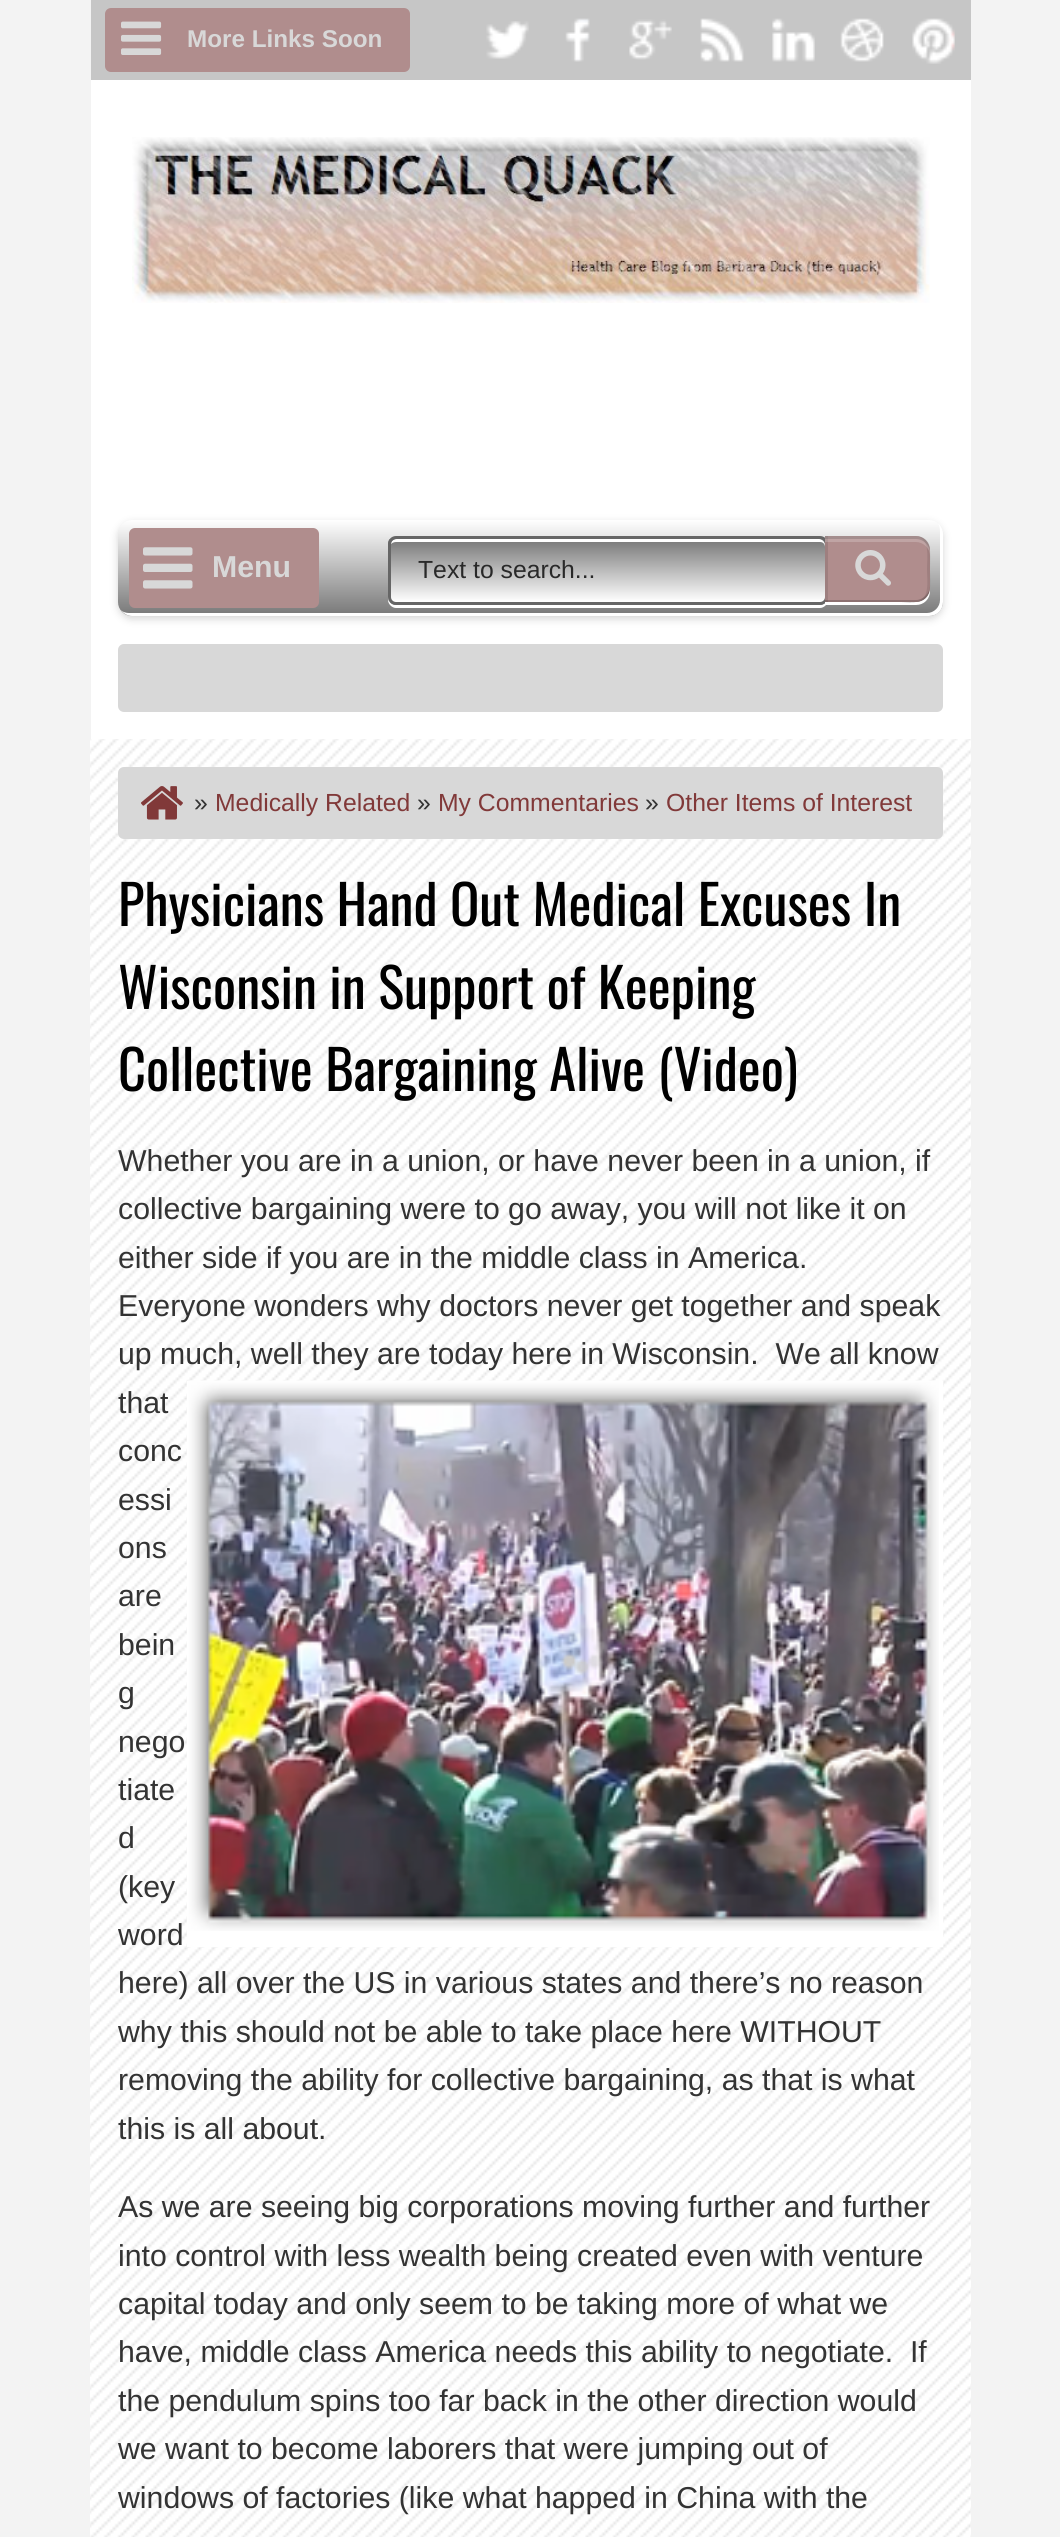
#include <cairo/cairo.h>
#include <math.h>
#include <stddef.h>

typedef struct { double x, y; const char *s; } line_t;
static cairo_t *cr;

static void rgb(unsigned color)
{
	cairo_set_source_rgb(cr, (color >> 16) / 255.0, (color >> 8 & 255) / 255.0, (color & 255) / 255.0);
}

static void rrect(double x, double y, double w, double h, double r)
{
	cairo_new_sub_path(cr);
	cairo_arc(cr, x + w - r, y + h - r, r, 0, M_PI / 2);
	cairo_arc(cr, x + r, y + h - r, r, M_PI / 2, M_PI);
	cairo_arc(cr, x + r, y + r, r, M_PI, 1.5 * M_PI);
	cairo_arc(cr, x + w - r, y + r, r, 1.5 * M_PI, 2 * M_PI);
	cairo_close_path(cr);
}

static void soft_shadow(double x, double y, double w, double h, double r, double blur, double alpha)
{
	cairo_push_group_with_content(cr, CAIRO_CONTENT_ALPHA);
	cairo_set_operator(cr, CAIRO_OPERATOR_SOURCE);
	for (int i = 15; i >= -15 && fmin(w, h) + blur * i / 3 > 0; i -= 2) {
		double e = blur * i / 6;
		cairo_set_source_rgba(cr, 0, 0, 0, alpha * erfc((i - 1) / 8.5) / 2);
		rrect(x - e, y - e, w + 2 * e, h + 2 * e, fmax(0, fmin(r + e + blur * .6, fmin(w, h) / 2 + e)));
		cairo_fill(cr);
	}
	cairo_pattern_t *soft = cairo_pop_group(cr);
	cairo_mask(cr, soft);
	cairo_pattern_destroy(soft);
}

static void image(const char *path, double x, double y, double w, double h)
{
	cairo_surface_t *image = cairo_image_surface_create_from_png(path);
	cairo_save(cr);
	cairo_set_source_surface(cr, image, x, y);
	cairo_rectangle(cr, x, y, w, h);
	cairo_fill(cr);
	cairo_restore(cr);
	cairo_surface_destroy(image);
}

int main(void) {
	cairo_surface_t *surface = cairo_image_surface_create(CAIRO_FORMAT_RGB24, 1060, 2537);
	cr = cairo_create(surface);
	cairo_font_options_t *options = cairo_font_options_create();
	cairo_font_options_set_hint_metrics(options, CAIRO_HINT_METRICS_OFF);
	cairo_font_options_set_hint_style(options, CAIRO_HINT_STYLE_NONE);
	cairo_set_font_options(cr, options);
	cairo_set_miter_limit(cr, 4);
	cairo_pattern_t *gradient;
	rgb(0xf3f3f3);
	cairo_paint(cr);
	rgb(0xffffff);
	cairo_rectangle(cr, 91, 80, 880, 659);
	cairo_fill(cr);
	rgb(0xc6c6c6);
	cairo_rectangle(cr, 91, 0, 880, 80);
	cairo_fill(cr);
	rgb(0xb08d8d);
	rrect(105, 8, 305, 64, 6);
	cairo_fill(cr);
	image("img/1.png", 121, 21, 41, 34);
	image("img/2.png", 486, 21, 43, 38);
	image("img/3.png", 565, 18, 25, 44);
	image("img/4.png", 629, 19, 43, 41);
	image("img/5.png", 700, 18, 44, 44);
	image("img/6.png", 772, 18, 43, 44);
	image("img/7.png", 840, 18, 44, 44);
	image("img/8.png", 912, 18, 43, 46);
	image("img/9.png", 132, 137, 798, 166);
	rgb(0xd6d6d6);
	soft_shadow(118, 523, 825, 96, 14, 4, 1);
	gradient = cairo_pattern_create_linear(531, 520, 531, 616);
	cairo_pattern_add_color_stop_rgba(gradient, 0, 1, 1, 1, 1);
	cairo_pattern_add_color_stop_rgba(gradient, 1, 0.467, 0.467, 0.467, 1);
	cairo_set_source(cr, gradient);
	cairo_pattern_destroy(gradient);
	rrect(118, 520, 825, 96, 14);
	cairo_fill(cr);
	rgb(0xffffff);
	cairo_new_path(cr);
	cairo_move_to(cr, 120, 609);
	cairo_curve_to(cr, 123, 613, 127, 616, 132, 616);
	cairo_line_to(cr, 929, 616);
	cairo_curve_to(cr, 937, 616, 943, 610, 943, 602);
	cairo_line_to(cr, 943, 534);
	cairo_curve_to(cr, 943, 530, 941, 526, 938, 523);
	cairo_curve_to(cr, 939, 525, 940, 528, 940, 531);
	cairo_line_to(cr, 940, 600);
	cairo_curve_to(cr, 940, 607, 934, 613, 927, 613);
	cairo_line_to(cr, 129, 613);
	cairo_curve_to(cr, 126, 613, 122, 612, 120, 609);
	cairo_close_path(cr);
	cairo_fill(cr);
	rgb(0xb08d8d);
	rrect(129, 528, 190, 80, 6);
	cairo_fill(cr);
	image("img/10.png", 143, 547, 50, 42);
	rgb(0xffffff);
	cairo_new_path(cr);
	cairo_move_to(cr, 388, 599);
	cairo_line_to(cr, 388, 600);
	cairo_curve_to(cr, 388, 604, 392, 608, 396, 608);
	cairo_line_to(cr, 820, 608);
	cairo_curve_to(cr, 824, 608, 828, 604, 828, 600);
	cairo_line_to(cr, 828, 545);
	cairo_line_to(cr, 828, 597);
	cairo_curve_to(cr, 828, 601, 824, 605, 820, 605);
	cairo_line_to(cr, 396, 605);
	cairo_curve_to(cr, 392, 605, 389, 602, 388, 599);
	cairo_close_path(cr);
	cairo_fill(cr);
	cairo_save(cr);
	rrect(388, 536, 440, 69, 8);
	cairo_clip(cr);
	gradient = cairo_pattern_create_linear(608, 539, 608, 602);
	cairo_pattern_add_color_stop_rgba(gradient, 0, 0.467, 0.467, 0.467, 1);
	cairo_pattern_add_color_stop_rgba(gradient, 1, 1, 1, 1, 1);
	cairo_set_source(cr, gradient);
	cairo_pattern_destroy(gradient);
	cairo_rectangle(cr, 388, 539, 437, 63);
	cairo_fill(cr);
	cairo_restore(cr);
	cairo_new_path(cr);
	cairo_move_to(cr, 396, 542);
	cairo_line_to(cr, 820, 542);
	cairo_curve_to(cr, 823, 542, 825, 544, 825, 547);
	cairo_line_to(cr, 825, 545);
	cairo_curve_to(cr, 825, 542, 822, 539, 819, 539);
	cairo_line_to(cr, 397, 539);
	cairo_curve_to(cr, 394, 539, 391, 541, 391, 544);
	cairo_curve_to(cr, 392, 543, 394, 542, 396, 542);
	cairo_close_path(cr);
	cairo_fill(cr);
	rrect(389.5, 537.5, 437, 66, 6.5);
	rgb(0x666666);
	cairo_set_line_width(cr, 3);
	cairo_stroke(cr);
	rgb(0xffffff);
	cairo_new_path(cr);
	cairo_move_to(cr, 825, 602);
	cairo_line_to(cr, 825, 605);
	cairo_line_to(cr, 916, 605);
	cairo_curve_to(cr, 924, 605, 930, 599, 930, 591);
	cairo_line_to(cr, 930, 553);
	cairo_line_to(cr, 929, 549);
	cairo_line_to(cr, 929, 591);
	cairo_curve_to(cr, 926, 605, 911, 602, 901, 602);
	cairo_close_path(cr);
	cairo_fill(cr);
	rgb(0xb08d8d);
	cairo_new_path(cr);
	cairo_move_to(cr, 825, 536);
	cairo_line_to(cr, 916, 536);
	cairo_curve_to(cr, 923.5, 536, 930, 542.5, 930, 550);
	cairo_line_to(cr, 930, 588);
	cairo_curve_to(cr, 930, 595.5, 923.5, 602, 916, 602);
	cairo_line_to(cr, 825, 602);
	cairo_close_path(cr);
	cairo_fill(cr);
	rgb(0x9e7f7f);
	cairo_rectangle(cr, 825, 536, 3, 66);
	cairo_fill(cr);
	cairo_set_source_rgba(cr, 0, 0, 0, 0.1);
	cairo_new_path(cr);
	cairo_move_to(cr, 913, 602);
	cairo_curve_to(cr, 934, 602, 930, 584, 930, 569);
	cairo_curve_to(cr, 930, 554, 934, 536, 913, 536);
	cairo_curve_to(cr, 931, 536, 927, 557, 927, 569);
	cairo_curve_to(cr, 927, 581, 931, 602, 913, 602);
	cairo_close_path(cr);
	cairo_fill(cr);
	cairo_set_source_rgba(cr, 0, 0, 0, 0.2);
	cairo_new_path(cr);
	cairo_move_to(cr, 825, 600);
	cairo_line_to(cr, 825, 602);
	cairo_line_to(cr, 916, 602);
	cairo_curve_to(cr, 924, 602, 930, 596, 930, 588);
	cairo_line_to(cr, 930, 586);
	cairo_curve_to(cr, 930, 593, 923, 600, 916, 600);
	cairo_close_path(cr);
	cairo_fill(cr);
	cairo_new_path(cr);
	cairo_move_to(cr, 825, 539);
	cairo_line_to(cr, 916, 539);
	cairo_curve_to(cr, 923, 539, 930, 545, 930, 553);
	cairo_line_to(cr, 930, 550);
	cairo_curve_to(cr, 930, 542, 924, 536, 916, 536);
	cairo_line_to(cr, 825, 536);
	cairo_close_path(cr);
	cairo_fill(cr);
	cairo_set_source_rgba(cr, 1, 1, 1, 0.2);
	cairo_new_path(cr);
	cairo_move_to(cr, 825, 542);
	cairo_line_to(cr, 916, 542);
	cairo_curve_to(cr, 923, 542, 930, 548, 930, 556);
	cairo_line_to(cr, 930, 550);
	cairo_curve_to(cr, 930, 542, 924, 536, 916, 536);
	cairo_line_to(cr, 825, 536);
	cairo_close_path(cr);
	cairo_fill(cr);
	image("img/11.png", 855, 550, 36, 36);
	rgb(0xd8d8d8);
	rrect(119.5, 645.5, 822, 65, 4.5);
	cairo_fill_preserve(cr);
	cairo_stroke(cr);
	image("img/12.png", 90, 739, 881, 1798);
	rrect(118, 767, 825, 72, 6);
	cairo_fill(cr);
	image("img/13.png", 141, 786, 42, 34);
	rgb(0xffffff);
	cairo_rectangle(cr, 187, 1381, 756, 566);
	cairo_fill(cr);
	image("img/14.png", 188, 1380, 751, 551);
	cairo_select_font_face(cr, "Liberation Sans", CAIRO_FONT_SLANT_NORMAL, CAIRO_FONT_WEIGHT_BOLD);
	cairo_set_font_size(cr, 24.25);
	rgb(0xd8d8d8);
	cairo_move_to(cr, 187, 47);
	cairo_show_text(cr, "More Links Soon");
	cairo_set_font_size(cr, 30.25);
	cairo_move_to(cr, 212, 577);
	cairo_show_text(cr, "Menu");
	cairo_select_font_face(cr, "Liberation Sans", CAIRO_FONT_SLANT_NORMAL, CAIRO_FONT_WEIGHT_NORMAL);
	cairo_set_font_size(cr, 24.75);
	rgb(0x292929);
	cairo_move_to(cr, 418, 578);
	cairo_show_text(cr, "Text to search...");
	rgb(0x333333);
	cairo_move_to(cr, 194, 811);
	cairo_show_text(cr, "»");
	rgb(0x813939);
	cairo_move_to(cr, 215, 811);
	cairo_show_text(cr, "Medically Related");
	rgb(0x333333);
	cairo_move_to(cr, 417, 811);
	cairo_show_text(cr, "»");
	rgb(0x813939);
	cairo_move_to(cr, 438, 811);
	cairo_show_text(cr, "My Commentaries");
	rgb(0x333333);
	cairo_move_to(cr, 645, 811);
	cairo_show_text(cr, "»");
	rgb(0x813939);
	cairo_move_to(cr, 666, 811);
	cairo_show_text(cr, "Other Items of Interest");
	cairo_select_font_face(cr, "Oswald", CAIRO_FONT_SLANT_NORMAL, CAIRO_FONT_WEIGHT_NORMAL);
	cairo_set_font_size(cr, 54.5);
	rgb(0x000000);
	{
		static const line_t items[] = {
			{118, 926, "Physicians Hand Out Medical Excuses In"},
			{118, 1009, "Wisconsin in Support of Keeping"},
			{118, 1091, "Collective Bargaining Alive (Video)"},
		};
		for (size_t i = 0; i < sizeof items / sizeof *items; i++) {
			cairo_move_to(cr, items[i].x, items[i].y);
			cairo_show_text(cr, items[i].s);
		}
	}
	cairo_select_font_face(cr, "Liberation Sans", CAIRO_FONT_SLANT_NORMAL, CAIRO_FONT_WEIGHT_NORMAL);
	cairo_set_font_size(cr, 30.25);
	rgb(0x333333);
	{
		static const line_t items[] = {
			{118, 1171, "Whether you are in a union, or have never been in a union, if"},
			{118, 1219, "collective bargaining were to go away, you will not like it on"},
			{118, 1268, "either side if you are in the middle class in America."},
			{118, 1316, "Everyone wonders why doctors never get together and speak"},
			{118, 1364, "up much, well they are today here in Wisconsin.  We all know"},
			{118, 1413, "that"},
			{118, 1461, "conc"},
			{118, 1510, "essi"},
			{118, 1558, "ons"},
			{118, 1606, "are"},
			{118, 1655, "bein"},
			{118, 1703, "g"},
			{118, 1752, "nego"},
			{118, 1800, "tiate"},
			{118, 1848, "d"},
			{118, 1897, "(key"},
			{118, 1945, "word"},
			{118, 1993, "here) all over the US in various states and there’s no reason"},
			{118, 2042, "why this should not be able to take place here WITHOUT"},
			{118, 2090, "removing the ability for collective bargaining, as that is what"},
			{118, 2139, "this is all about."},
			{118, 2217, "As we are seeing big corporations moving further and further"},
			{118, 2266, "into control with less wealth being created even with venture"},
			{118, 2314, "capital today and only seem to be taking more of what we"},
			{118, 2362, "have, middle class America needs this ability to negotiate.  If"},
			{118, 2411, "the pendulum spins too far back in the other direction would"},
			{118, 2459, "we want to become laborers that were jumping out of"},
			{118, 2508, "windows of factories (like what happed in China with the"},
		};
		for (size_t i = 0; i < sizeof items / sizeof *items; i++) {
			cairo_move_to(cr, items[i].x, items[i].y);
			cairo_show_text(cr, items[i].s);
		}
	}
	cairo_surface_write_to_png(surface, "page.png");
	cairo_font_options_destroy(options);
	cairo_destroy(cr);
	cairo_surface_destroy(surface);
	return 0;
}
